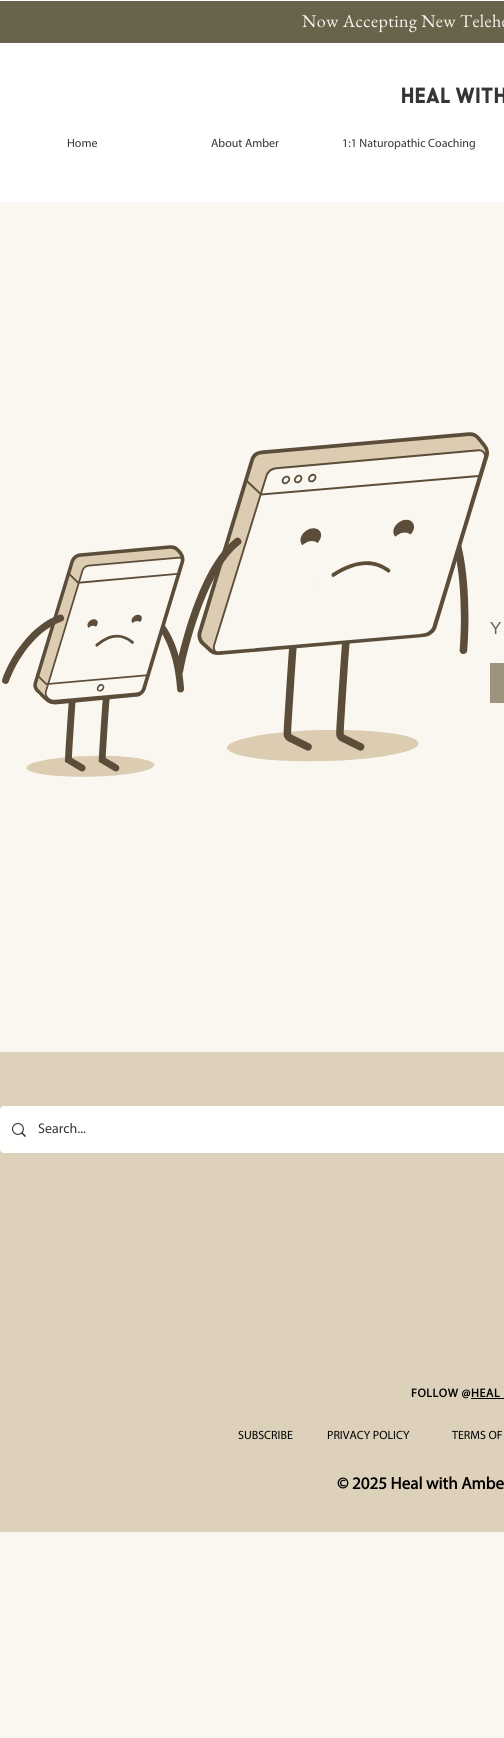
#include <cairo/cairo.h>
#include <math.h>
#include <stddef.h>

typedef struct { double x, y; const char *s; } line_t;
static cairo_t *cr;

static void rgb(unsigned color)
{
	cairo_set_source_rgb(cr, (color >> 16) / 255.0, (color >> 8 & 255) / 255.0, (color & 255) / 255.0);
}

static void tracked(double x, double y, const char *s, double letter, double word)
{
	cairo_move_to(cr, x, y);
	while (*s) {
		char ch[5] = {0};
		int n = 0;
		do ch[n++] = *s++; while ((*s & 0xC0) == 0x80);
		cairo_show_text(cr, ch);
		cairo_rel_move_to(cr, letter + word * (*ch == ' '), 0);
	}
}

static void rrect(double x, double y, double w, double h, double r)
{
	cairo_new_sub_path(cr);
	cairo_arc(cr, x + w - r, y + h - r, r, 0, M_PI / 2);
	cairo_arc(cr, x + r, y + h - r, r, M_PI / 2, M_PI);
	cairo_arc(cr, x + r, y + r, r, M_PI, 1.5 * M_PI);
	cairo_arc(cr, x + w - r, y + r, r, 1.5 * M_PI, 2 * M_PI);
	cairo_close_path(cr);
}

static void image(const char *path, double x, double y, double w, double h)
{
	cairo_surface_t *image = cairo_image_surface_create_from_png(path);
	cairo_save(cr);
	cairo_set_source_surface(cr, image, x, y);
	cairo_rectangle(cr, x, y, w, h);
	cairo_fill(cr);
	cairo_restore(cr);
	cairo_surface_destroy(image);
}

int main(void) {
	cairo_surface_t *surface = cairo_image_surface_create(CAIRO_FORMAT_RGB24, 504, 1738);
	cr = cairo_create(surface);
	cairo_font_options_t *options = cairo_font_options_create();
	cairo_font_options_set_hint_metrics(options, CAIRO_HINT_METRICS_OFF);
	cairo_font_options_set_hint_style(options, CAIRO_HINT_STYLE_NONE);
	cairo_set_font_options(cr, options);
	cairo_set_miter_limit(cr, 4);
	rgb(0xfaf7f0);
	cairo_paint(cr);
	rgb(0xffffff);
	cairo_rectangle(cr, 0, 0, 504, 202);
	cairo_fill(cr);
	rgb(0x69634b);
	cairo_rectangle(cr, 0, 1, 504, 42);
	cairo_fill(cr);
	image("img/1.png", 2, 432, 487, 345);
	rgb(0x9c947d);
	cairo_rectangle(cr, 490, 663, 14, 40);
	cairo_fill(cr);
	rgb(0xddd1bb);
	cairo_rectangle(cr, 0, 1052, 504, 480);
	cairo_fill(cr);
	rgb(0xfffffe);
	rrect(0, 1106, 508, 47, 4);
	cairo_fill(cr);
	image("img/2.png", 12, 1123, 14, 14);
	rgb(0x000000);
	cairo_rectangle(cr, 471, 1398, 33, 1);
	cairo_fill(cr);
	cairo_select_font_face(cr, "EB Garamond", CAIRO_FONT_SLANT_NORMAL, CAIRO_FONT_WEIGHT_NORMAL);
	cairo_set_font_size(cr, 18);
	rgb(0xfaf7f0);
	tracked(302, 27, "Now Accepting New Telehe", 0.4, 0);
	cairo_select_font_face(cr, "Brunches", CAIRO_FONT_SLANT_NORMAL, CAIRO_FONT_WEIGHT_NORMAL);
	cairo_set_font_size(cr, 22);
	rgb(0x363535);
	cairo_move_to(cr, 401, 103);
	cairo_show_text(cr, "HEAL WITH");
	cairo_select_font_face(cr, "Myriad", CAIRO_FONT_SLANT_NORMAL, CAIRO_FONT_WEIGHT_NORMAL);
	cairo_set_font_size(cr, 12);
	{
		static const line_t items[] = {
			{67, 147, "Home"},
			{211, 147, "About Amber"},
			{342, 147, "1:1 Naturopathic Coaching"},
		};
		for (size_t i = 0; i < sizeof items / sizeof *items; i++) {
			cairo_move_to(cr, items[i].x, items[i].y);
			cairo_show_text(cr, items[i].s);
		}
	}
	cairo_select_font_face(cr, "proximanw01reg", CAIRO_FONT_SLANT_NORMAL, CAIRO_FONT_WEIGHT_NORMAL);
	cairo_set_font_size(cr, 18);
	rgb(0x636363);
	cairo_move_to(cr, 490, 634);
	cairo_show_text(cr, "Y");
	cairo_select_font_face(cr, "Myriad", CAIRO_FONT_SLANT_NORMAL, CAIRO_FONT_WEIGHT_NORMAL);
	cairo_set_font_size(cr, 14);
	rgb(0x363535);
	cairo_move_to(cr, 38, 1133);
	cairo_show_text(cr, "Search...");
	cairo_select_font_face(cr, "Myriad", CAIRO_FONT_SLANT_NORMAL, CAIRO_FONT_WEIGHT_BOLD);
	cairo_set_font_size(cr, 12);
	rgb(0x000000);
	tracked(411, 1397, "FOLLOW @HEAL", 0.6, 0);
	cairo_select_font_face(cr, "Myriad", CAIRO_FONT_SLANT_NORMAL, CAIRO_FONT_WEIGHT_NORMAL);
	{
		static const line_t items[] = {
			{238, 1439, "SUBSCRIBE"},
			{327, 1439, "PRIVACY POLICY"},
			{452, 1439, "TERMS OF"},
		};
		for (size_t i = 0; i < sizeof items / sizeof *items; i++) {
			cairo_move_to(cr, items[i].x, items[i].y);
			cairo_show_text(cr, items[i].s);
		}
	}
	cairo_select_font_face(cr, "Myriad", CAIRO_FONT_SLANT_NORMAL, CAIRO_FONT_WEIGHT_BOLD);
	cairo_set_font_size(cr, 17);
	cairo_move_to(cr, 337, 1489);
	cairo_show_text(cr, "© 2025 Heal with Ambe");
	cairo_surface_write_to_png(surface, "page.png");
	cairo_font_options_destroy(options);
	cairo_destroy(cr);
	cairo_surface_destroy(surface);
	return 0;
}
